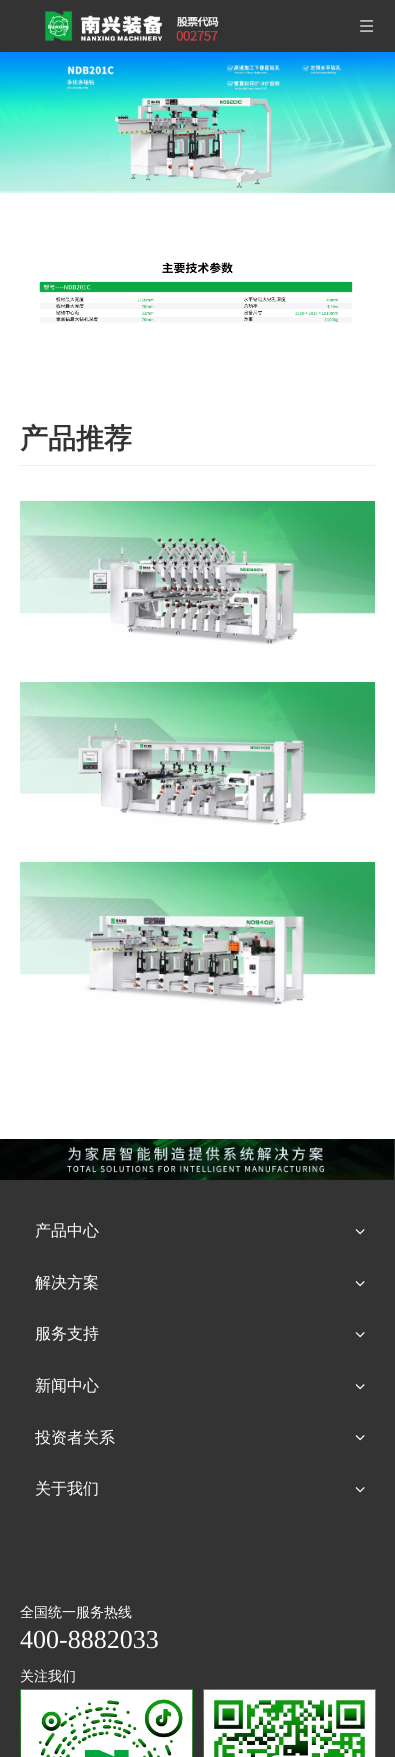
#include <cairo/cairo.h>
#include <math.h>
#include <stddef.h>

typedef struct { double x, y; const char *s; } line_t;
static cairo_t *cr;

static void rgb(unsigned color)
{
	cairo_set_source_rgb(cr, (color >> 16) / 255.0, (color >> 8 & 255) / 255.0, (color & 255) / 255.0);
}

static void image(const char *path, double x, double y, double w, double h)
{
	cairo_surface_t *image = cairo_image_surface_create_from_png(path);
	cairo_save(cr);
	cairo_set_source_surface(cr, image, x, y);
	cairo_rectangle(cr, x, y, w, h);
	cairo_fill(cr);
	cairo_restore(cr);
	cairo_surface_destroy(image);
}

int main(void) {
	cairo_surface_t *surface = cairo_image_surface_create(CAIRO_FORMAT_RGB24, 395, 1757);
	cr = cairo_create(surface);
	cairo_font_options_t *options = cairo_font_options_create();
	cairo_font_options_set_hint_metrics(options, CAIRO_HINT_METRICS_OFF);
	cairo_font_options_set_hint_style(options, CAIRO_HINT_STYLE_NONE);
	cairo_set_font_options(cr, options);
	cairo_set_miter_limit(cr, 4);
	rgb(0xffffff);
	cairo_paint(cr);
	rgb(0x333333);
	cairo_rectangle(cr, 0, 0, 395, 52);
	cairo_fill(cr);
	image("img/1.png", 45, 11, 174, 31);
	image("img/2.png", 360, 20, 14, 12);
	image("img/3.png", 0, 52, 395, 141);
	image("img/4.png", 39, 262, 314, 61);
	rgb(0xeeeeee);
	cairo_rectangle(cr, 20, 465, 355, 1);
	cairo_fill(cr);
	image("img/5.png", 20, 501, 355, 144);
	image("img/6.png", 20, 682, 355, 143);
	image("img/7.png", 20, 862, 355, 144);
	image("img/8.png", 0, 1139, 395, 41);
	rgb(0x333333);
	cairo_rectangle(cr, 0, 1180, 395, 577);
	cairo_fill(cr);
	image("img/9.png", 355, 1229, 10, 6);
	image("img/9.png", 355, 1281, 10, 6);
	image("img/9.png", 355, 1332, 10, 6);
	image("img/9.png", 355, 1384, 10, 6);
	image("img/9.png", 355, 1435, 10, 6);
	image("img/9.png", 355, 1487, 10, 6);
	image("img/10.png", 20, 1689, 173, 68);
	image("img/11.png", 203, 1689, 173, 68);
	cairo_select_font_face(cr, "WenQuanYi Zen Hei", CAIRO_FONT_SLANT_NORMAL, CAIRO_FONT_WEIGHT_BOLD);
	cairo_set_font_size(cr, 28);
	cairo_move_to(cr, 20, 448);
	cairo_show_text(cr, "产品推荐");
	cairo_select_font_face(cr, "WenQuanYi Zen Hei Medium", CAIRO_FONT_SLANT_NORMAL, CAIRO_FONT_WEIGHT_NORMAL);
	cairo_set_font_size(cr, 16);
	rgb(0xffffff);
	{
		static const line_t items[] = {
			{35, 1236, "产品中心"},
			{35, 1288, "解决方案"},
			{35, 1339, "服务支持"},
			{35, 1391, "新闻中心"},
			{35, 1443, "投资者关系"},
			{35, 1494, "关于我们"},
		};
		for (size_t i = 0; i < sizeof items / sizeof *items; i++) {
			cairo_move_to(cr, items[i].x, items[i].y);
			cairo_show_text(cr, items[i].s);
		}
	}
	cairo_set_font_size(cr, 14);
	cairo_move_to(cr, 20, 1617);
	cairo_show_text(cr, "全国统一服务热线");
	cairo_select_font_face(cr, "Liberation Serif", CAIRO_FONT_SLANT_NORMAL, CAIRO_FONT_WEIGHT_NORMAL);
	cairo_set_font_size(cr, 26);
	cairo_move_to(cr, 20, 1648);
	cairo_show_text(cr, "400-8882033");
	cairo_select_font_face(cr, "WenQuanYi Zen Hei Medium", CAIRO_FONT_SLANT_NORMAL, CAIRO_FONT_WEIGHT_NORMAL);
	cairo_set_font_size(cr, 14);
	cairo_move_to(cr, 20, 1681);
	cairo_show_text(cr, "关注我们");
	cairo_surface_write_to_png(surface, "page.png");
	cairo_font_options_destroy(options);
	cairo_destroy(cr);
	cairo_surface_destroy(surface);
	return 0;
}
